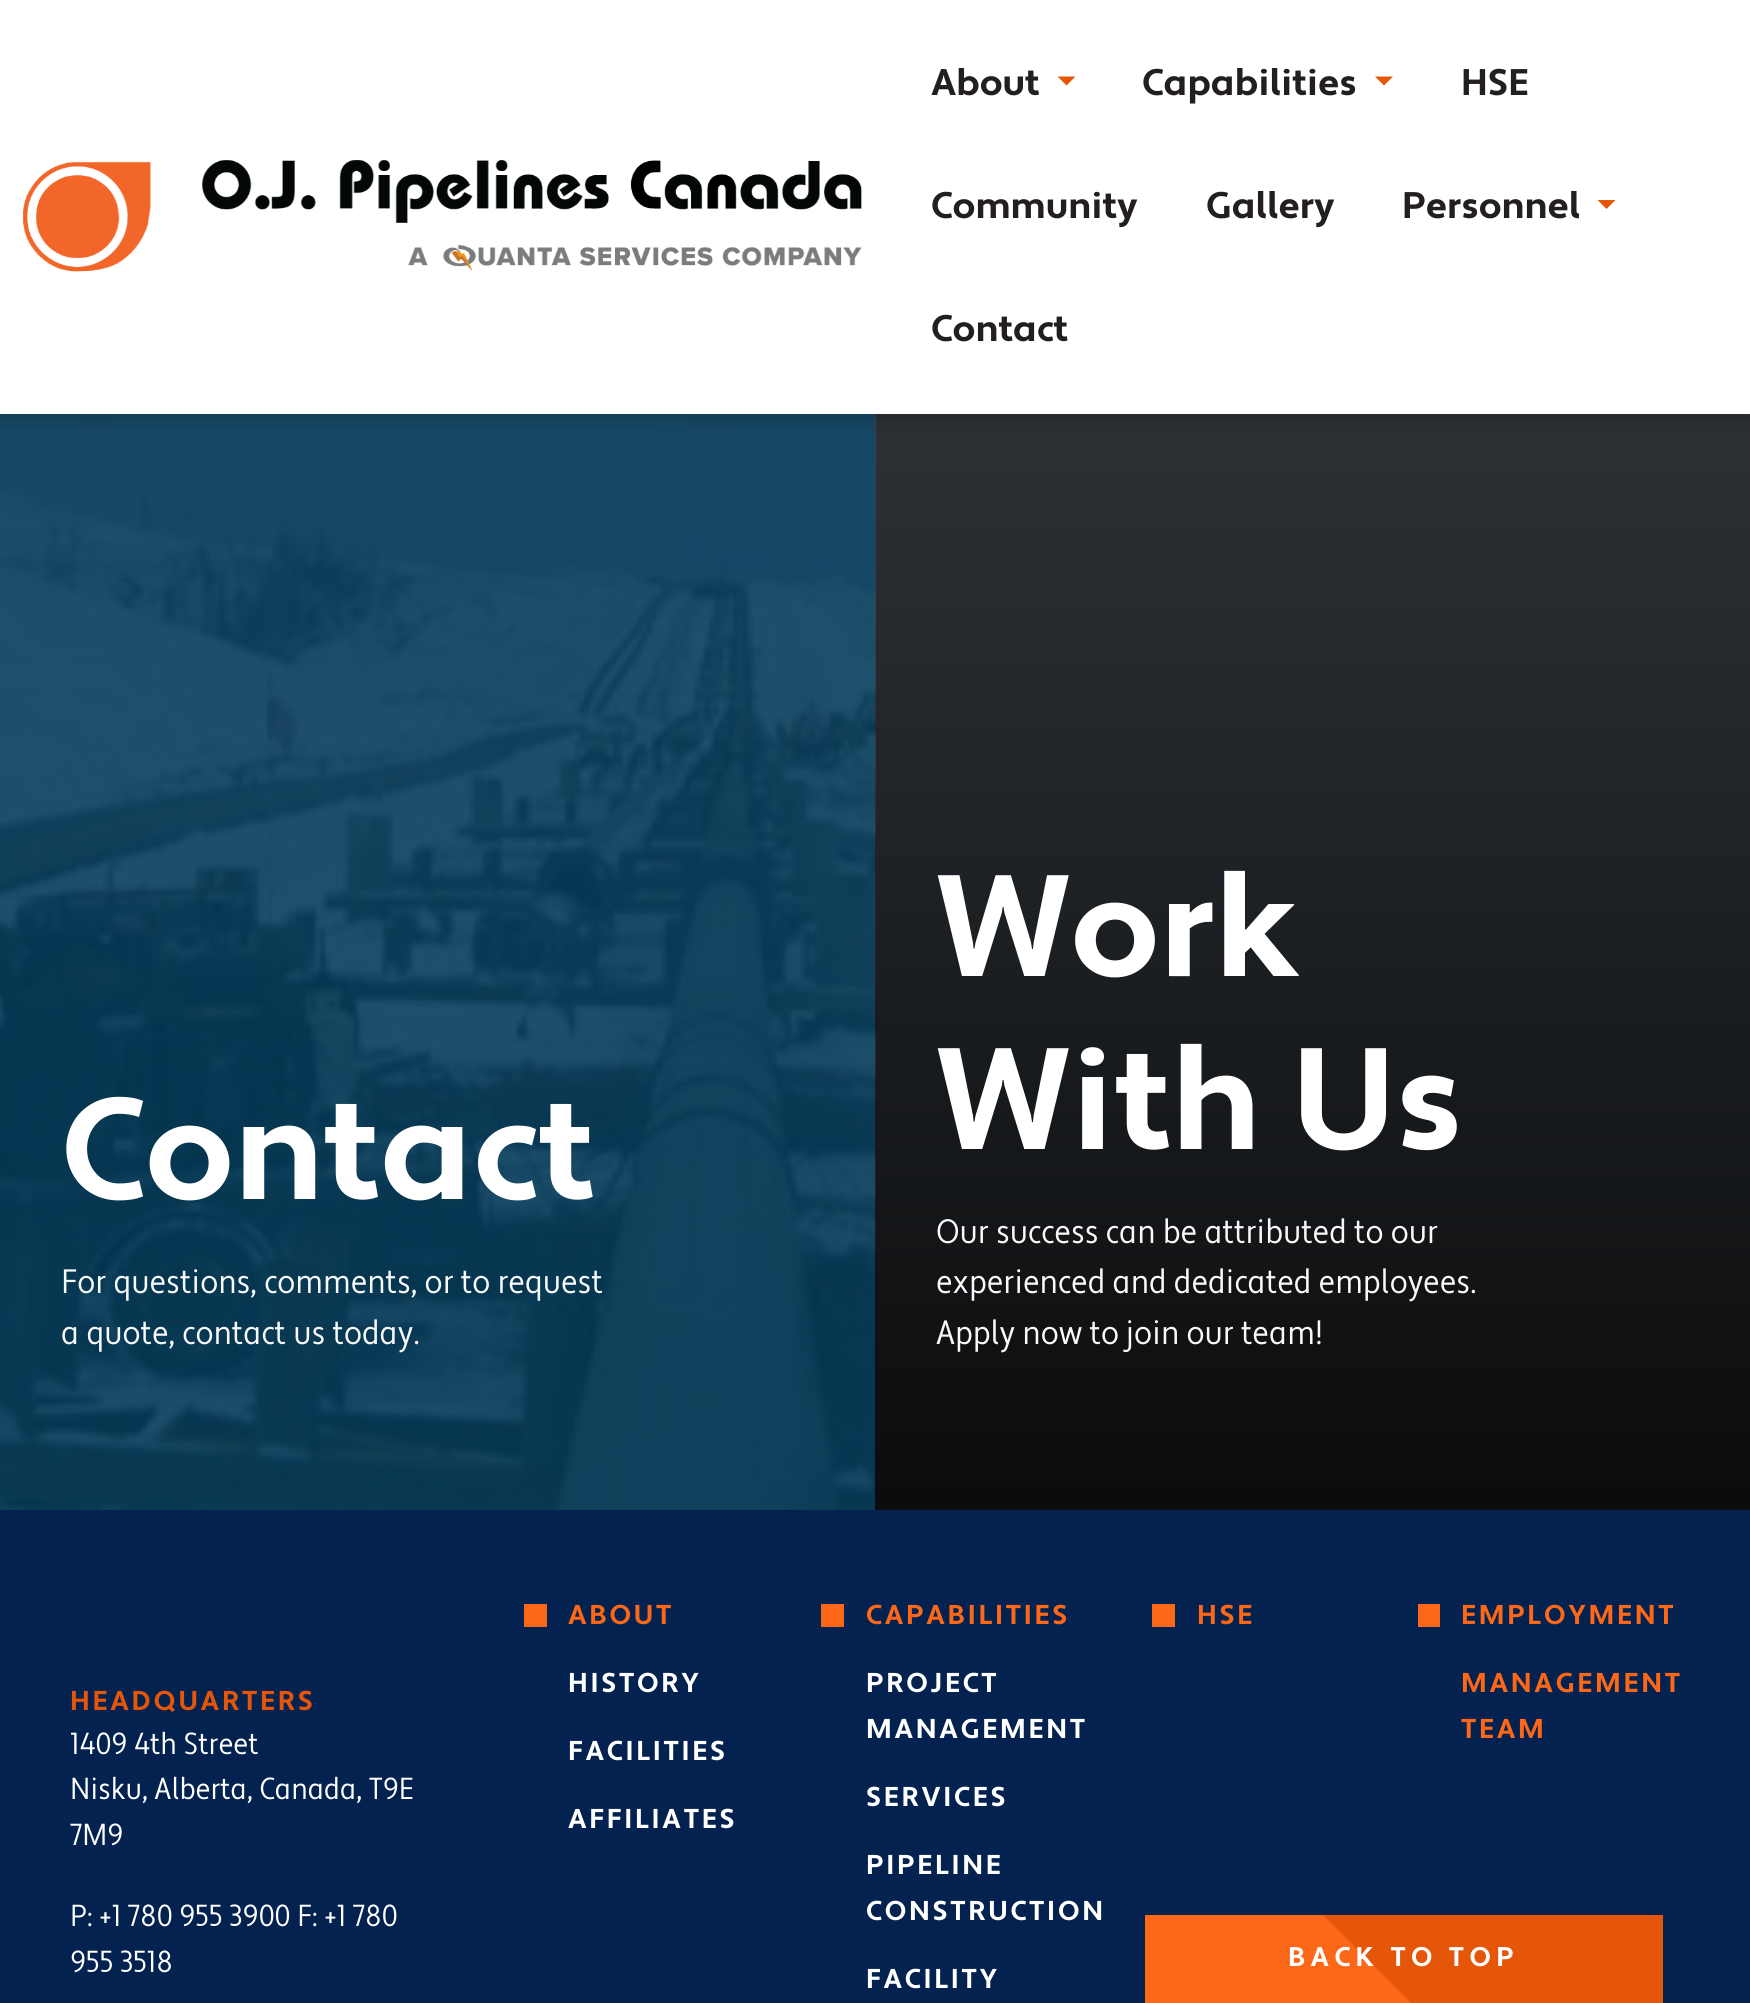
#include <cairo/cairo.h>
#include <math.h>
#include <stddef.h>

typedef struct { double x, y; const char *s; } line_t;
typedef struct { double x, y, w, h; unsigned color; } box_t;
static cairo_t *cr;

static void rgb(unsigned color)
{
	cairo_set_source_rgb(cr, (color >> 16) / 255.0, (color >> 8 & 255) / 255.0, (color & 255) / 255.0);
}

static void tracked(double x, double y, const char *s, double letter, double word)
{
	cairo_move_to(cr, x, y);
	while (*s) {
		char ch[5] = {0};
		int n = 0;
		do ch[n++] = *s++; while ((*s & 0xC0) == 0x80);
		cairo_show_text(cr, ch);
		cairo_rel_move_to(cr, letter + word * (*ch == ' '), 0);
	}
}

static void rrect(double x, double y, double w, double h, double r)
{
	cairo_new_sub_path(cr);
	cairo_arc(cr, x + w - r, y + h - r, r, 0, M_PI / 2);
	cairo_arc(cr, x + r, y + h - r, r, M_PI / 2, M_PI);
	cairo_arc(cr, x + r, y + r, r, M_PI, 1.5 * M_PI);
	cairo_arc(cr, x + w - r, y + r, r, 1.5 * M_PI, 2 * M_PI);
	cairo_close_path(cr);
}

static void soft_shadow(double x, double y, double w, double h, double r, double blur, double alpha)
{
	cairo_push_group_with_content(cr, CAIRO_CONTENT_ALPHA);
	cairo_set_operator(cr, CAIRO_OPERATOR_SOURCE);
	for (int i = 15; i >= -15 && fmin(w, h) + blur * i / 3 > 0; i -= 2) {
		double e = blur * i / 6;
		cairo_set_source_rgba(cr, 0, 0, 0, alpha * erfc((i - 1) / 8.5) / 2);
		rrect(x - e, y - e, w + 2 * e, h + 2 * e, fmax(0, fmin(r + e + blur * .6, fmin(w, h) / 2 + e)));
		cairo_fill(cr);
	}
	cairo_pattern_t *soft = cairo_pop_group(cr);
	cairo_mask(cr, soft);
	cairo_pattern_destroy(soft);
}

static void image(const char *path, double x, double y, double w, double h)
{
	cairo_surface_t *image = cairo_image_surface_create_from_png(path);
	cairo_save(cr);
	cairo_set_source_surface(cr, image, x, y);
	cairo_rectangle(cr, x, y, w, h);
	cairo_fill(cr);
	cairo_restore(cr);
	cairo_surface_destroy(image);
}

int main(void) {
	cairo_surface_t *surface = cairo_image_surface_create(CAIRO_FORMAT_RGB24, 1750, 2003);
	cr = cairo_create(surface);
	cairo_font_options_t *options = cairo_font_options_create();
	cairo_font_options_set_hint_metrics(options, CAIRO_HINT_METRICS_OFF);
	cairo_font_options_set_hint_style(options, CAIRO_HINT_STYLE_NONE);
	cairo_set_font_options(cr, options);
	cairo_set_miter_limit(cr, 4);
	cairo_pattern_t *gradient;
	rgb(0x04224f);
	cairo_paint(cr);
	rgb(0x343a40);
	cairo_rectangle(cr, 875, 414, 875, 1096);
	cairo_fill(cr);
	rgb(0x0a3c56);
	cairo_rectangle(cr, 0, 1509, 875, 1);
	cairo_fill(cr);
	image("img/2.png", 0, 414, 876, 1096);
	gradient = cairo_pattern_create_linear(1313, 160, 1313, 1510);
	cairo_pattern_add_color_stop_rgba(gradient, 0, 0, 0, 0, 0);
	cairo_pattern_add_color_stop_rgba(gradient, 1, 0, 0, 0, 0.8);
	cairo_set_source(cr, gradient);
	cairo_pattern_destroy(gradient);
	cairo_rectangle(cr, 875, 414, 875, 1096);
	cairo_fill(cr);
	rgb(0x000000);
	soft_shadow(0, 7, 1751, 414, 0, 11, 0.2);
	rgb(0xffffff);
	cairo_rectangle(cr, 0, 0, 1750, 414);
	cairo_fill(cr);
	image("img/1.png", 23, 160, 839, 112);
	rgb(0xe55609);
	cairo_new_path(cr);
	cairo_move_to(cr, 1057.5, 76.5);
	cairo_line_to(cr, 1075.5, 76.5);
	cairo_line_to(cr, 1066.5, 85.5);
	cairo_close_path(cr);
	cairo_fill(cr);
	cairo_new_path(cr);
	cairo_move_to(cr, 1375, 76.5);
	cairo_line_to(cr, 1393, 76.5);
	cairo_line_to(cr, 1384, 85.5);
	cairo_close_path(cr);
	cairo_fill(cr);
	cairo_new_path(cr);
	cairo_move_to(cr, 1597.5, 200);
	cairo_line_to(cr, 1615.5, 200);
	cairo_line_to(cr, 1606.5, 209);
	cairo_close_path(cr);
	cairo_fill(cr);
	{
		static const box_t items[] = {
			{524, 1604, 23, 23, 0xfc6718},
			{821, 1604, 23, 23, 0xfc6718},
			{1152, 1604, 23, 23, 0xfc6718},
			{1418, 1604, 22, 23, 0xfc6718},
			{1145, 1915, 266, 88, 0xfc6718},
		};
		for (size_t i = 0; i < sizeof items / sizeof *items; i++) {
			rgb(items[i].color);
			cairo_rectangle(cr, items[i].x, items[i].y, items[i].w, items[i].h);
			cairo_fill(cr);
		}
	}
	cairo_save(cr);
	cairo_rectangle(cr, 1145, 1915, 518, 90);
	cairo_clip(cr);
	rgb(0xe55609);
	cairo_new_path(cr);
	cairo_move_to(cr, 1595, 1551);
	cairo_line_to(cr, 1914, 1869);
	cairo_line_to(cr, 1595, 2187);
	cairo_line_to(cr, 1277, 1869);
	cairo_close_path(cr);
	cairo_fill(cr);
	cairo_restore(cr);
	cairo_select_font_face(cr, "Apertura", CAIRO_FONT_SLANT_NORMAL, CAIRO_FONT_WEIGHT_BOLD);
	cairo_set_font_size(cr, 37);
	rgb(0x231f20);
	{
		static const line_t items[] = {
			{931, 95, "About"},
			{1142, 95, "Capabilities"},
			{1461, 95, "HSE"},
			{931, 218, "Community"},
			{1206, 218, "Gallery"},
			{1402, 218, "Personnel"},
			{931, 341, "Contact"},
		};
		for (size_t i = 0; i < sizeof items / sizeof *items; i++) {
			cairo_move_to(cr, items[i].x, items[i].y);
			cairo_show_text(cr, items[i].s);
		}
	}
	cairo_set_font_size(cr, 144);
	rgb(0xffffff);
	cairo_move_to(cr, 61, 1199);
	cairo_show_text(cr, "Contact");
	cairo_select_font_face(cr, "Apertura", CAIRO_FONT_SLANT_NORMAL, CAIRO_FONT_WEIGHT_NORMAL);
	cairo_set_font_size(cr, 33.75);
	rgb(0xf8f9fa);
	cairo_move_to(cr, 61, 1293);
	cairo_show_text(cr, "For questions, comments, or to request");
	cairo_move_to(cr, 61, 1344);
	cairo_show_text(cr, "a quote, contact us today.");
	cairo_select_font_face(cr, "Apertura", CAIRO_FONT_SLANT_NORMAL, CAIRO_FONT_WEIGHT_BOLD);
	cairo_set_font_size(cr, 144);
	rgb(0xffffff);
	cairo_move_to(cr, 936, 976);
	cairo_show_text(cr, "Work");
	cairo_move_to(cr, 936, 1149);
	cairo_show_text(cr, "With Us");
	cairo_select_font_face(cr, "Apertura", CAIRO_FONT_SLANT_NORMAL, CAIRO_FONT_WEIGHT_NORMAL);
	cairo_set_font_size(cr, 33.75);
	rgb(0xf8f9fa);
	{
		static const line_t items[] = {
			{936, 1243, "Our success can be attributed to our"},
			{936, 1293, "experienced and dedicated employees."},
			{936, 1344, "Apply now to join our team!"},
		};
		for (size_t i = 0; i < sizeof items / sizeof *items; i++) {
			cairo_move_to(cr, items[i].x, items[i].y);
			cairo_show_text(cr, items[i].s);
		}
	}
	cairo_select_font_face(cr, "Apertura", CAIRO_FONT_SLANT_NORMAL, CAIRO_FONT_WEIGHT_BOLD);
	cairo_set_font_size(cr, 27.25);
	rgb(0xe55609);
	tracked(70, 1710, "HEADQUARTERS", 2.75, 0);
	cairo_select_font_face(cr, "Apertura", CAIRO_FONT_SLANT_NORMAL, CAIRO_FONT_WEIGHT_NORMAL);
	cairo_set_font_size(cr, 30.4);
	rgb(0xffffff);
	{
		static const line_t items[] = {
			{70, 1754, "1409 4th Street"},
			{70, 1799, "Nisku, Alberta, Canada, T9E"},
			{70, 1845, "7M9"},
			{70, 1926, "P: +1 780 955 3900 F: +1 780"},
			{70, 1972, "955 3518"},
		};
		for (size_t i = 0; i < sizeof items / sizeof *items; i++) {
			cairo_move_to(cr, items[i].x, items[i].y);
			cairo_show_text(cr, items[i].s);
		}
	}
	cairo_select_font_face(cr, "Apertura", CAIRO_FONT_SLANT_NORMAL, CAIRO_FONT_WEIGHT_BOLD);
	cairo_set_font_size(cr, 27.25);
	rgb(0xfc6718);
	tracked(568, 1624, "ABOUT", 2.75, 0);
	rgb(0xffffff);
	{
		static const line_t items[] = {
			{568, 1692, "HISTORY"},
			{568, 1760, "FACILITIES"},
			{568, 1828, "AFFILIATES"},
		};
		for (size_t i = 0; i < sizeof items / sizeof *items; i++) {
			tracked(items[i].x, items[i].y, items[i].s, 2.75, 0);
		}
	}
	rgb(0xfc6718);
	tracked(866, 1624, "CAPABILITIES", 2.75, 0);
	rgb(0xffffff);
	{
		static const line_t items[] = {
			{866, 1692, "PROJECT"},
			{866, 1738, "MANAGEMENT"},
			{866, 1806, "SERVICES"},
			{866, 1874, "PIPELINE"},
			{866, 1920, "CONSTRUCTION"},
			{866, 1988, "FACILITY"},
		};
		for (size_t i = 0; i < sizeof items / sizeof *items; i++) {
			tracked(items[i].x, items[i].y, items[i].s, 2.75, 0);
		}
	}
	rgb(0xfc6718);
	{
		static const line_t items[] = {
			{1197, 1624, "HSE"},
			{1461, 1624, "EMPLOYMENT"},
			{1461, 1692, "MANAGEMENT"},
			{1461, 1738, "TEAM"},
		};
		for (size_t i = 0; i < sizeof items / sizeof *items; i++) {
			tracked(items[i].x, items[i].y, items[i].s, 2.75, 0);
		}
	}
	cairo_set_font_size(cr, 27);
	rgb(0xffffff);
	tracked(1288, 1966, "BACK TO TOP", 5.4, 0);
	cairo_surface_write_to_png(surface, "page.png");
	cairo_font_options_destroy(options);
	cairo_destroy(cr);
	cairo_surface_destroy(surface);
	return 0;
}
